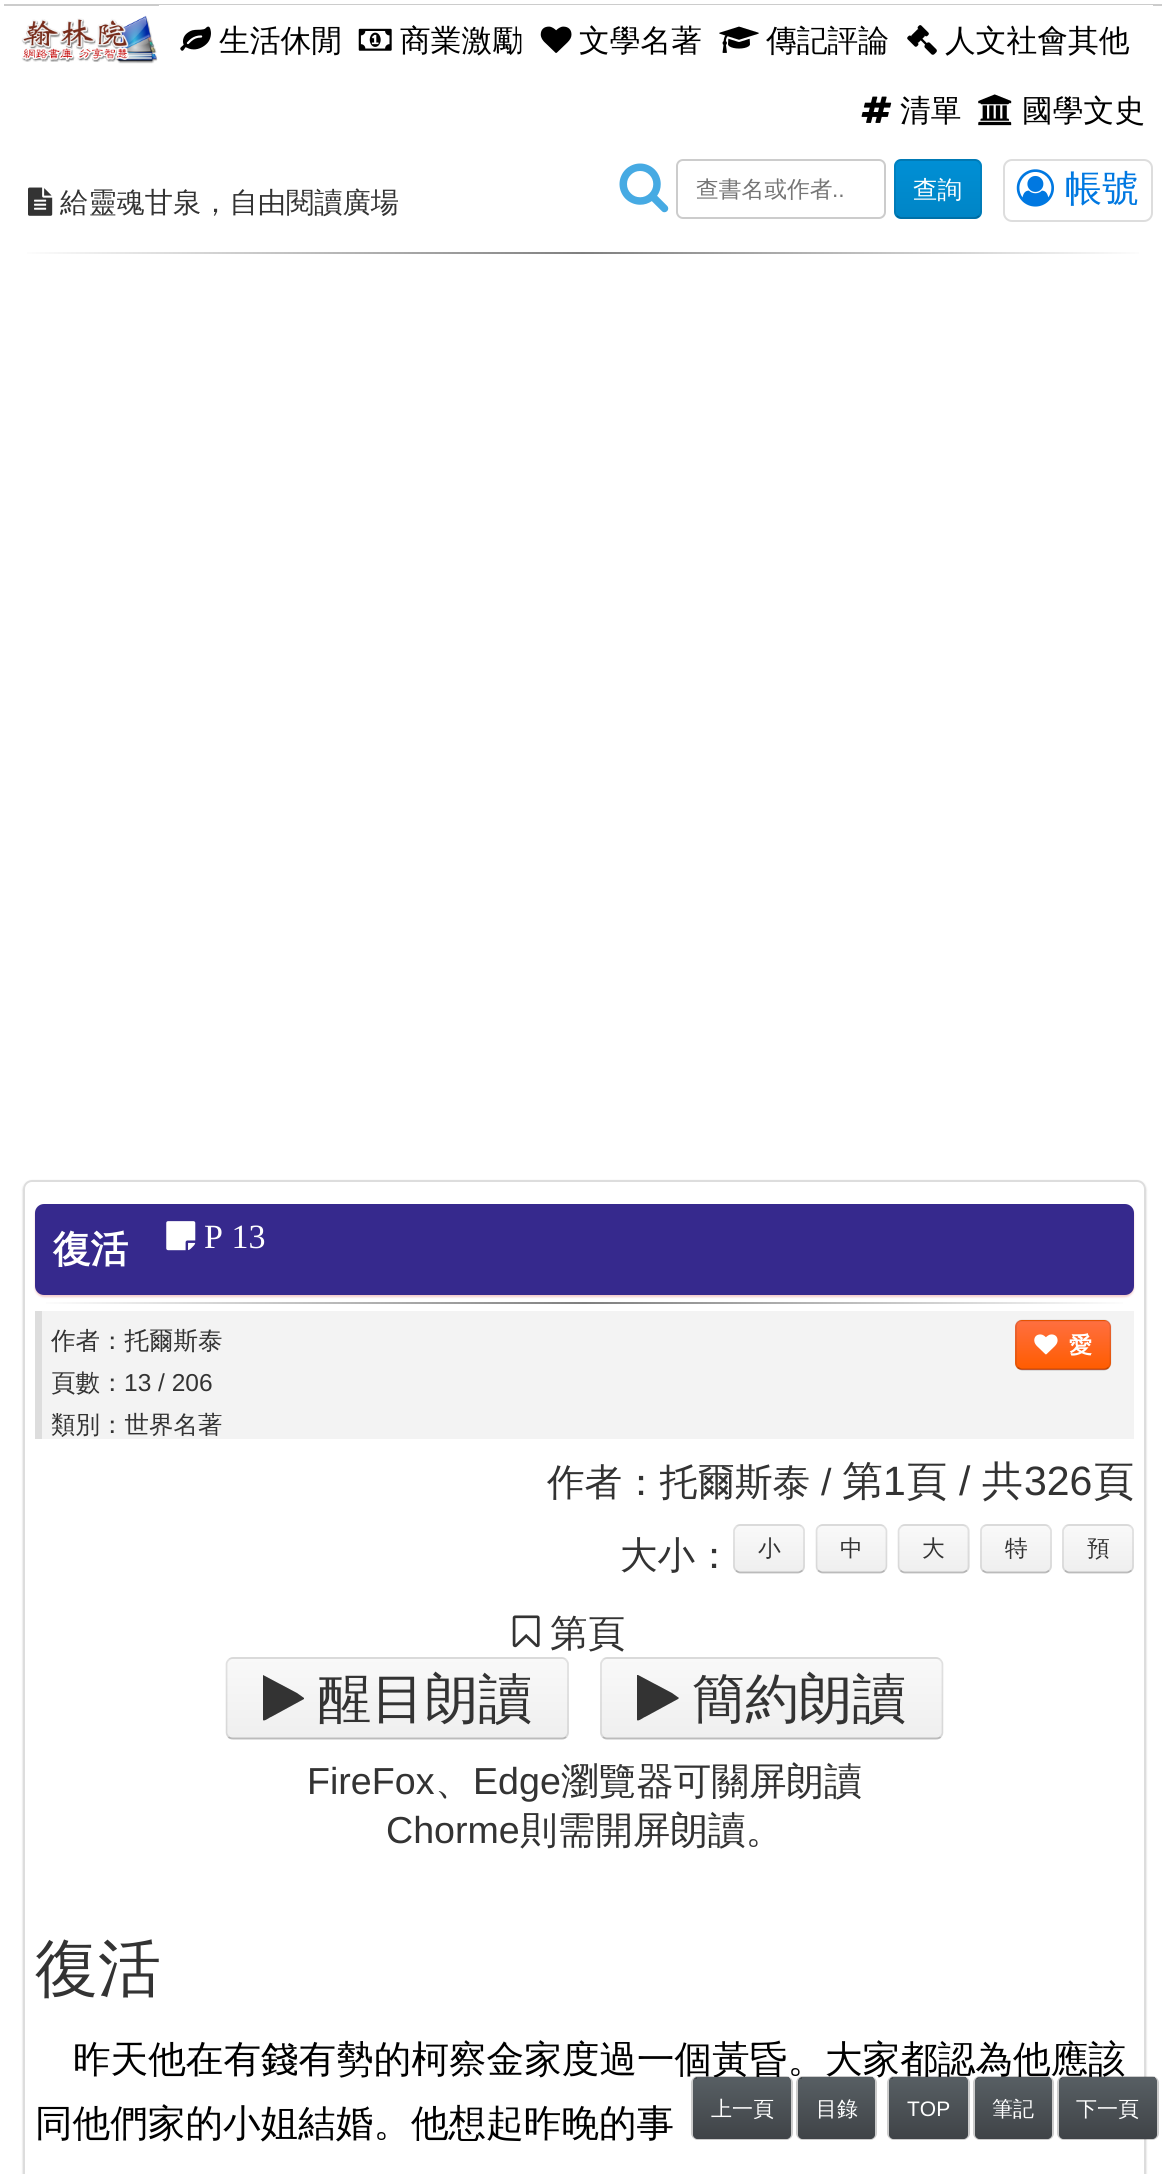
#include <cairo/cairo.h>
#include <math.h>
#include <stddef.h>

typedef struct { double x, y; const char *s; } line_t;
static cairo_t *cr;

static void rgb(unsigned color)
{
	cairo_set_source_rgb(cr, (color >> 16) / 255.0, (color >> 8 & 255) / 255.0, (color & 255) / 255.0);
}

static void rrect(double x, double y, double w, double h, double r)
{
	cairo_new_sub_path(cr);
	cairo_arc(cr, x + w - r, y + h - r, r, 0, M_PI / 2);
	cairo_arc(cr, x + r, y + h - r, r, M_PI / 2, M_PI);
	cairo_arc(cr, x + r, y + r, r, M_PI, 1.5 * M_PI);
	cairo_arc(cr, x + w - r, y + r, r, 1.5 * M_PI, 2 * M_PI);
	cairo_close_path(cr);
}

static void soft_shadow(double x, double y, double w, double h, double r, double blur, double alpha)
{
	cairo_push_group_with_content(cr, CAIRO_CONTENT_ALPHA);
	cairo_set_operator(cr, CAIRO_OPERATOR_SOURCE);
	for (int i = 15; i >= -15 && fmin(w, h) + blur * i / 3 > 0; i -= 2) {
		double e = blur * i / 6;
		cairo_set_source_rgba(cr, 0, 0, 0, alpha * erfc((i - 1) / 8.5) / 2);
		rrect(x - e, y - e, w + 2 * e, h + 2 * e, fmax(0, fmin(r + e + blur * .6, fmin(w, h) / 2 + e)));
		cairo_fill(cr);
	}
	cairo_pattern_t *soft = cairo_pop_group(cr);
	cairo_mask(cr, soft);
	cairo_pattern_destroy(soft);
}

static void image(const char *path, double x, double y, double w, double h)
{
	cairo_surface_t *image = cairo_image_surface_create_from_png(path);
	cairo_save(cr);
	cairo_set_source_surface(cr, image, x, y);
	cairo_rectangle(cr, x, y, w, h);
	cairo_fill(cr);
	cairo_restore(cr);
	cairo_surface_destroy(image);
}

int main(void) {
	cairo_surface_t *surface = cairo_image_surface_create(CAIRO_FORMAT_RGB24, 1165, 2174);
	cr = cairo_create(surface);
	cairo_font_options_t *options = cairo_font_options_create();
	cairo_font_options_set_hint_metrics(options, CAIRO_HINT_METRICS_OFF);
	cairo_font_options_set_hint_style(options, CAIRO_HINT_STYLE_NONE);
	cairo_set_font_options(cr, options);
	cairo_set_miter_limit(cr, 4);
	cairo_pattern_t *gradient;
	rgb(0xffffff);
	cairo_paint(cr);
	rgb(0xcccccc);
	cairo_rectangle(cr, 4, 4, 1158, 2);
	cairo_fill(cr);
	image("img/1.png", 21, 15, 137, 49);
	rgb(0xffffff);
	cairo_rectangle(cr, 159, 5, 994, 1);
	cairo_fill(cr);
	image("img/2.png", 180, 26, 31, 25);
	image("img/3.png", 358, 28, 34, 23);
	image("img/4.png", 540, 26, 32, 27);
	image("img/5.png", 719, 26, 40, 27);
	image("img/6.png", 907, 25, 30, 30);
	image("img/7.png", 861, 96, 31, 27);
	image("img/8.png", 978, 94, 34, 32);
	image("img/9.png", 28, 187, 25, 29);
	image("img/10.png", 619, 163, 50, 50);
	rrect(677, 160, 208, 58, 6);
	rgb(0xcccccc);
	cairo_stroke(cr);
	cairo_save(cr);
	rrect(894, 159, 88, 60, 7);
	cairo_clip(cr);
	gradient = cairo_pattern_create_linear(896, 105, 896, 161);
	cairo_pattern_add_color_stop_rgba(gradient, 0, 0, 0.561, 0.835, 1);
	cairo_pattern_add_color_stop_rgba(gradient, 1, 0, 0.522, 0.776, 1);
	cairo_set_source(cr, gradient);
	cairo_pattern_destroy(gradient);
	cairo_rectangle(cr, 894, 159, 88, 2);
	cairo_fill(cr);
	gradient = cairo_pattern_create_linear(896, 161, 896, 217);
	cairo_pattern_add_color_stop_rgba(gradient, 0, 0, 0.561, 0.835, 1);
	cairo_pattern_add_color_stop_rgba(gradient, 1, 0, 0.522, 0.776, 1);
	cairo_set_source(cr, gradient);
	cairo_pattern_destroy(gradient);
	cairo_rectangle(cr, 894, 161, 88, 56);
	cairo_fill(cr);
	gradient = cairo_pattern_create_linear(896, 217, 896, 273);
	cairo_pattern_add_color_stop_rgba(gradient, 0, 0, 0.561, 0.835, 1);
	cairo_pattern_add_color_stop_rgba(gradient, 1, 0, 0.522, 0.776, 1);
	cairo_set_source(cr, gradient);
	cairo_pattern_destroy(gradient);
	cairo_rectangle(cr, 894, 217, 88, 2);
	cairo_fill(cr);
	cairo_restore(cr);
	cairo_new_path(cr);
	cairo_move_to(cr, 979, 216);
	cairo_curve_to(cr, 978, 217, 976.5, 218, 975, 218);
	cairo_line_to(cr, 901, 218);
	cairo_curve_to(cr, 899.5, 218, 898, 217, 897, 216);
	cairo_set_source_rgba(cr, 0, 0, 0, 0.25);
	cairo_set_line_width(cr, 1.8);
	cairo_stroke(cr);
	cairo_new_path(cr);
	cairo_move_to(cr, 897, 216);
	cairo_curve_to(cr, 896, 215, 895, 213.5, 895, 212);
	cairo_line_to(cr, 895, 166);
	cairo_curve_to(cr, 895, 164.5, 896, 163, 897, 162);
	cairo_curve_to(cr, 898, 161, 899.5, 160, 901, 160);
	cairo_line_to(cr, 975, 160);
	cairo_curve_to(cr, 976.5, 160, 978, 161, 979, 162);
	cairo_curve_to(cr, 980, 163, 981, 164.5, 981, 166);
	cairo_line_to(cr, 981, 212);
	cairo_curve_to(cr, 981, 213.5, 980, 215, 979, 216);
	cairo_set_source_rgba(cr, 0, 0, 0, 0.1);
	cairo_stroke(cr);
	rrect(1004, 160, 148, 61, 8);
	rgb(0xdddddd);
	cairo_set_line_width(cr, 2);
	cairo_stroke(cr);
	image("img/11.png", 1016, 169, 38, 38);
	gradient = cairo_pattern_create_linear(16, 253, 1150, 253);
	cairo_pattern_add_color_stop_rgba(gradient, 0, 1, 1, 1, 1);
	cairo_pattern_add_color_stop_rgba(gradient, 0.5, 0.498, 0.498, 0.498, 1);
	cairo_pattern_add_color_stop_rgba(gradient, 1, 1, 1, 1, 1);
	cairo_set_source(cr, gradient);
	cairo_pattern_destroy(gradient);
	cairo_rectangle(cr, 27, 252, 1112, 2);
	cairo_fill(cr);
	cairo_save(cr);
	cairo_set_fill_rule(cr, CAIRO_FILL_RULE_EVEN_ODD);
	cairo_new_path(cr);
	cairo_move_to(cr, 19, 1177);
	cairo_line_to(cr, 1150, 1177);
	cairo_line_to(cr, 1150, 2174);
	cairo_line_to(cr, 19, 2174);
	cairo_close_path(cr);
	cairo_move_to(cr, 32, 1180);
	cairo_line_to(cr, 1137, 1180);
	cairo_curve_to(cr, 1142, 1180, 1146, 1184, 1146, 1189);
	cairo_line_to(cr, 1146, 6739);
	cairo_curve_to(cr, 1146, 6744, 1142, 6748, 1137, 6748);
	cairo_line_to(cr, 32, 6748);
	cairo_curve_to(cr, 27, 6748, 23, 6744, 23, 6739);
	cairo_line_to(cr, 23, 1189);
	cairo_curve_to(cr, 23, 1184, 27, 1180, 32, 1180);
	cairo_close_path(cr);
	cairo_clip(cr);
	rgb(0x000000);
	soft_shadow(23, 1181, 1123, 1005, 9, 1, 0.2);
	cairo_restore(cr);
	rrect(24, 1181, 1121, 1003, 8);
	rgb(0xdddddd);
	cairo_stroke(cr);
	rgb(0xc40000);
	soft_shadow(35, 1206, 1099, 91, 9, 1, 0.2);
	rgb(0x36298d);
	rrect(35, 1204, 1099, 91, 9);
	cairo_fill(cr);
	image("img/12.png", 166, 1221, 30, 30);
	gradient = cairo_pattern_create_linear(35, 1303, 1134, 1303);
	cairo_pattern_add_color_stop_rgba(gradient, 0, 1, 1, 1, 1);
	cairo_pattern_add_color_stop_rgba(gradient, 0.5, 0.498, 0.498, 0.498, 1);
	cairo_pattern_add_color_stop_rgba(gradient, 1, 1, 1, 1, 1);
	cairo_set_source(cr, gradient);
	cairo_pattern_destroy(gradient);
	cairo_rectangle(cr, 46, 1302, 1077, 2);
	cairo_fill(cr);
	rgb(0xf3f3f3);
	cairo_rectangle(cr, 42, 1311, 1092, 128);
	cairo_fill(cr);
	rgb(0xdddddd);
	cairo_rectangle(cr, 35, 1311, 7, 128);
	cairo_fill(cr);
	cairo_save(cr);
	rrect(1015, 1320, 96, 50, 7);
	cairo_clip(cr);
	gradient = cairo_pattern_create_linear(1017, 1274, 1017, 1321);
	cairo_pattern_add_color_stop_rgba(gradient, 0, 1, 0.435, 0.251, 1);
	cairo_pattern_add_color_stop_rgba(gradient, 1, 1, 0.361, 0, 1);
	cairo_set_source(cr, gradient);
	cairo_pattern_destroy(gradient);
	cairo_rectangle(cr, 1015, 1320, 96, 1);
	cairo_fill(cr);
	gradient = cairo_pattern_create_linear(1017, 1321, 1017, 1369);
	cairo_pattern_add_color_stop_rgba(gradient, 0, 1, 0.435, 0.251, 1);
	cairo_pattern_add_color_stop_rgba(gradient, 1, 1, 0.361, 0, 1);
	cairo_set_source(cr, gradient);
	cairo_pattern_destroy(gradient);
	cairo_rectangle(cr, 1015, 1321, 96, 48);
	cairo_fill(cr);
	gradient = cairo_pattern_create_linear(1017, 1369, 1017, 1416);
	cairo_pattern_add_color_stop_rgba(gradient, 0, 1, 0.435, 0.251, 1);
	cairo_pattern_add_color_stop_rgba(gradient, 1, 1, 0.361, 0, 1);
	cairo_set_source(cr, gradient);
	cairo_pattern_destroy(gradient);
	cairo_rectangle(cr, 1015, 1369, 96, 1);
	cairo_fill(cr);
	cairo_restore(cr);
	cairo_new_path(cr);
	cairo_move_to(cr, 1108.5, 1367.5);
	cairo_curve_to(cr, 1107.5, 1368.5, 1106, 1369.5, 1104, 1369.5);
	cairo_line_to(cr, 1022, 1369.5);
	cairo_curve_to(cr, 1020.5, 1369.5, 1019, 1368.5, 1017.5, 1367.5);
	cairo_set_source_rgba(cr, 0, 0, 0, 0.25);
	cairo_set_line_width(cr, 1.8);
	cairo_stroke(cr);
	cairo_new_path(cr);
	cairo_move_to(cr, 1017.5, 1367.5);
	cairo_curve_to(cr, 1016.5, 1366.5, 1016, 1365, 1016, 1363);
	cairo_line_to(cr, 1016, 1326.5);
	cairo_curve_to(cr, 1016, 1325, 1016.5, 1323.5, 1017.5, 1322);
	cairo_curve_to(cr, 1019, 1321, 1020.5, 1320.5, 1022, 1320.5);
	cairo_line_to(cr, 1104, 1320.5);
	cairo_curve_to(cr, 1106, 1320.5, 1107.5, 1321, 1108.5, 1322);
	cairo_curve_to(cr, 1109.5, 1323.5, 1110.5, 1325, 1110.5, 1326.5);
	cairo_line_to(cr, 1110.5, 1363);
	cairo_curve_to(cr, 1110.5, 1365, 1109.5, 1366.5, 1108.5, 1367.5);
	cairo_set_source_rgba(cr, 0, 0, 0, 0.1);
	cairo_stroke(cr);
	image("img/13.png", 1034, 1334, 24, 21);
	cairo_save(cr);
	rrect(733, 1524, 72, 49, 7);
	cairo_clip(cr);
	gradient = cairo_pattern_create_linear(769, 1481, 769, 1526);
	cairo_pattern_add_color_stop_rgba(gradient, 0, 0.976, 0.976, 0.976, 1);
	cairo_pattern_add_color_stop_rgba(gradient, 1, 0.937, 0.937, 0.937, 1);
	cairo_set_source(cr, gradient);
	cairo_pattern_destroy(gradient);
	cairo_rectangle(cr, 733, 1524, 72, 2);
	cairo_fill(cr);
	gradient = cairo_pattern_create_linear(769, 1526, 769, 1572);
	cairo_pattern_add_color_stop_rgba(gradient, 0, 0.976, 0.976, 0.976, 1);
	cairo_pattern_add_color_stop_rgba(gradient, 1, 0.937, 0.937, 0.937, 1);
	cairo_set_source(cr, gradient);
	cairo_pattern_destroy(gradient);
	cairo_rectangle(cr, 733, 1526, 72, 46);
	cairo_fill(cr);
	gradient = cairo_pattern_create_linear(769, 1572, 769, 1617);
	cairo_pattern_add_color_stop_rgba(gradient, 0, 0.976, 0.976, 0.976, 1);
	cairo_pattern_add_color_stop_rgba(gradient, 1, 0.937, 0.937, 0.937, 1);
	cairo_set_source(cr, gradient);
	cairo_pattern_destroy(gradient);
	cairo_rectangle(cr, 733, 1572, 72, 1);
	cairo_fill(cr);
	cairo_restore(cr);
	cairo_new_path(cr);
	cairo_move_to(cr, 802.5, 1570.5);
	cairo_curve_to(cr, 801, 1571.5, 799.5, 1572.5, 798, 1572.5);
	cairo_line_to(cr, 740, 1572.5);
	cairo_curve_to(cr, 738.5, 1572.5, 737, 1571.5, 736, 1570.5);
	cairo_set_source_rgba(cr, 0, 0, 0, 0.25);
	cairo_stroke(cr);
	cairo_new_path(cr);
	cairo_move_to(cr, 736, 1570.5);
	cairo_curve_to(cr, 735, 1569.5, 734, 1568, 734, 1566);
	cairo_line_to(cr, 734, 1531);
	cairo_curve_to(cr, 734, 1529.5, 735, 1528, 736, 1527);
	cairo_curve_to(cr, 737, 1526, 738.5, 1525, 740, 1525);
	cairo_line_to(cr, 798, 1525);
	cairo_curve_to(cr, 799.5, 1525, 801, 1526, 802.5, 1527);
	cairo_curve_to(cr, 803.5, 1528, 804, 1529.5, 804, 1531);
	cairo_line_to(cr, 804, 1566);
	cairo_curve_to(cr, 804, 1568, 803.5, 1569.5, 802.5, 1570.5);
	cairo_set_source_rgba(cr, 0, 0, 0, 0.1);
	cairo_stroke(cr);
	cairo_save(cr);
	rrect(816, 1524, 71, 49, 7);
	cairo_clip(cr);
	gradient = cairo_pattern_create_linear(851, 1481, 851, 1526);
	cairo_pattern_add_color_stop_rgba(gradient, 0, 0.976, 0.976, 0.976, 1);
	cairo_pattern_add_color_stop_rgba(gradient, 1, 0.937, 0.937, 0.937, 1);
	cairo_set_source(cr, gradient);
	cairo_pattern_destroy(gradient);
	cairo_rectangle(cr, 816, 1524, 71, 2);
	cairo_fill(cr);
	gradient = cairo_pattern_create_linear(851, 1526, 851, 1572);
	cairo_pattern_add_color_stop_rgba(gradient, 0, 0.976, 0.976, 0.976, 1);
	cairo_pattern_add_color_stop_rgba(gradient, 1, 0.937, 0.937, 0.937, 1);
	cairo_set_source(cr, gradient);
	cairo_pattern_destroy(gradient);
	cairo_rectangle(cr, 816, 1526, 71, 46);
	cairo_fill(cr);
	gradient = cairo_pattern_create_linear(851, 1572, 851, 1617);
	cairo_pattern_add_color_stop_rgba(gradient, 0, 0.976, 0.976, 0.976, 1);
	cairo_pattern_add_color_stop_rgba(gradient, 1, 0.937, 0.937, 0.937, 1);
	cairo_set_source(cr, gradient);
	cairo_pattern_destroy(gradient);
	cairo_rectangle(cr, 816, 1572, 71, 1);
	cairo_fill(cr);
	cairo_restore(cr);
	cairo_new_path(cr);
	cairo_move_to(cr, 884.5, 1570.5);
	cairo_curve_to(cr, 883.5, 1571.5, 882, 1572.5, 880, 1572.5);
	cairo_line_to(cr, 822.5, 1572.5);
	cairo_curve_to(cr, 821, 1572.5, 819.5, 1571.5, 818, 1570.5);
	cairo_set_source_rgba(cr, 0, 0, 0, 0.25);
	cairo_stroke(cr);
	cairo_new_path(cr);
	cairo_move_to(cr, 818, 1570.5);
	cairo_curve_to(cr, 817, 1569.5, 816.5, 1568, 816.5, 1566);
	cairo_line_to(cr, 816.5, 1531);
	cairo_curve_to(cr, 816.5, 1529.5, 817, 1528, 818, 1527);
	cairo_curve_to(cr, 819.5, 1526, 821, 1525, 822.5, 1525);
	cairo_line_to(cr, 880, 1525);
	cairo_curve_to(cr, 882, 1525, 883.5, 1526, 884.5, 1527);
	cairo_curve_to(cr, 885.5, 1528, 886.5, 1529.5, 886.5, 1531);
	cairo_line_to(cr, 886.5, 1566);
	cairo_curve_to(cr, 886.5, 1568, 885.5, 1569.5, 884.5, 1570.5);
	cairo_set_source_rgba(cr, 0, 0, 0, 0.1);
	cairo_stroke(cr);
	cairo_save(cr);
	rrect(898, 1524, 72, 49, 7);
	cairo_clip(cr);
	gradient = cairo_pattern_create_linear(934, 1481, 934, 1526);
	cairo_pattern_add_color_stop_rgba(gradient, 0, 0.976, 0.976, 0.976, 1);
	cairo_pattern_add_color_stop_rgba(gradient, 1, 0.937, 0.937, 0.937, 1);
	cairo_set_source(cr, gradient);
	cairo_pattern_destroy(gradient);
	cairo_rectangle(cr, 898, 1524, 72, 2);
	cairo_fill(cr);
	gradient = cairo_pattern_create_linear(934, 1526, 934, 1572);
	cairo_pattern_add_color_stop_rgba(gradient, 0, 0.976, 0.976, 0.976, 1);
	cairo_pattern_add_color_stop_rgba(gradient, 1, 0.937, 0.937, 0.937, 1);
	cairo_set_source(cr, gradient);
	cairo_pattern_destroy(gradient);
	cairo_rectangle(cr, 898, 1526, 72, 46);
	cairo_fill(cr);
	gradient = cairo_pattern_create_linear(934, 1572, 934, 1617);
	cairo_pattern_add_color_stop_rgba(gradient, 0, 0.976, 0.976, 0.976, 1);
	cairo_pattern_add_color_stop_rgba(gradient, 1, 0.937, 0.937, 0.937, 1);
	cairo_set_source(cr, gradient);
	cairo_pattern_destroy(gradient);
	cairo_rectangle(cr, 898, 1572, 72, 1);
	cairo_fill(cr);
	cairo_restore(cr);
	cairo_new_path(cr);
	cairo_move_to(cr, 967, 1570.5);
	cairo_curve_to(cr, 965.5, 1571.5, 964, 1572.5, 962.5, 1572.5);
	cairo_line_to(cr, 905, 1572.5);
	cairo_curve_to(cr, 903, 1572.5, 901.5, 1571.5, 900.5, 1570.5);
	cairo_set_source_rgba(cr, 0, 0, 0, 0.25);
	cairo_stroke(cr);
	cairo_new_path(cr);
	cairo_move_to(cr, 900.5, 1570.5);
	cairo_curve_to(cr, 899.5, 1569.5, 898.5, 1568, 898.5, 1566);
	cairo_line_to(cr, 898.5, 1531);
	cairo_curve_to(cr, 898.5, 1529.5, 899.5, 1528, 900.5, 1527);
	cairo_curve_to(cr, 901.5, 1526, 903, 1525, 905, 1525);
	cairo_line_to(cr, 962.5, 1525);
	cairo_curve_to(cr, 964, 1525, 965.5, 1526, 967, 1527);
	cairo_curve_to(cr, 968, 1528, 968.5, 1529.5, 968.5, 1531);
	cairo_line_to(cr, 968.5, 1566);
	cairo_curve_to(cr, 968.5, 1568, 968, 1569.5, 967, 1570.5);
	cairo_set_source_rgba(cr, 0, 0, 0, 0.1);
	cairo_stroke(cr);
	cairo_save(cr);
	rrect(980, 1524, 72, 49, 7);
	cairo_clip(cr);
	gradient = cairo_pattern_create_linear(1016, 1481, 1016, 1526);
	cairo_pattern_add_color_stop_rgba(gradient, 0, 0.976, 0.976, 0.976, 1);
	cairo_pattern_add_color_stop_rgba(gradient, 1, 0.937, 0.937, 0.937, 1);
	cairo_set_source(cr, gradient);
	cairo_pattern_destroy(gradient);
	cairo_rectangle(cr, 980, 1524, 72, 2);
	cairo_fill(cr);
	gradient = cairo_pattern_create_linear(1016, 1526, 1016, 1572);
	cairo_pattern_add_color_stop_rgba(gradient, 0, 0.976, 0.976, 0.976, 1);
	cairo_pattern_add_color_stop_rgba(gradient, 1, 0.937, 0.937, 0.937, 1);
	cairo_set_source(cr, gradient);
	cairo_pattern_destroy(gradient);
	cairo_rectangle(cr, 980, 1526, 72, 46);
	cairo_fill(cr);
	gradient = cairo_pattern_create_linear(1016, 1572, 1016, 1617);
	cairo_pattern_add_color_stop_rgba(gradient, 0, 0.976, 0.976, 0.976, 1);
	cairo_pattern_add_color_stop_rgba(gradient, 1, 0.937, 0.937, 0.937, 1);
	cairo_set_source(cr, gradient);
	cairo_pattern_destroy(gradient);
	cairo_rectangle(cr, 980, 1572, 72, 1);
	cairo_fill(cr);
	cairo_restore(cr);
	cairo_new_path(cr);
	cairo_move_to(cr, 1049, 1570.5);
	cairo_curve_to(cr, 1048, 1571.5, 1046.5, 1572.5, 1045, 1572.5);
	cairo_line_to(cr, 987, 1572.5);
	cairo_curve_to(cr, 985.5, 1572.5, 984, 1571.5, 982.5, 1570.5);
	cairo_set_source_rgba(cr, 0, 0, 0, 0.25);
	cairo_stroke(cr);
	cairo_new_path(cr);
	cairo_move_to(cr, 982.5, 1570.5);
	cairo_curve_to(cr, 981.5, 1569.5, 981, 1568, 981, 1566);
	cairo_line_to(cr, 981, 1531);
	cairo_curve_to(cr, 981, 1529.5, 981.5, 1528, 982.5, 1527);
	cairo_curve_to(cr, 984, 1526, 985.5, 1525, 987, 1525);
	cairo_line_to(cr, 1045, 1525);
	cairo_curve_to(cr, 1046.5, 1525, 1048, 1526, 1049, 1527);
	cairo_curve_to(cr, 1050, 1528, 1051, 1529.5, 1051, 1531);
	cairo_line_to(cr, 1051, 1566);
	cairo_curve_to(cr, 1051, 1568, 1050, 1569.5, 1049, 1570.5);
	cairo_set_source_rgba(cr, 0, 0, 0, 0.1);
	cairo_stroke(cr);
	cairo_save(cr);
	rrect(1062, 1524, 72, 49, 7);
	cairo_clip(cr);
	gradient = cairo_pattern_create_linear(1098, 1481, 1098, 1526);
	cairo_pattern_add_color_stop_rgba(gradient, 0, 0.976, 0.976, 0.976, 1);
	cairo_pattern_add_color_stop_rgba(gradient, 1, 0.937, 0.937, 0.937, 1);
	cairo_set_source(cr, gradient);
	cairo_pattern_destroy(gradient);
	cairo_rectangle(cr, 1062, 1524, 72, 2);
	cairo_fill(cr);
	gradient = cairo_pattern_create_linear(1098, 1526, 1098, 1572);
	cairo_pattern_add_color_stop_rgba(gradient, 0, 0.976, 0.976, 0.976, 1);
	cairo_pattern_add_color_stop_rgba(gradient, 1, 0.937, 0.937, 0.937, 1);
	cairo_set_source(cr, gradient);
	cairo_pattern_destroy(gradient);
	cairo_rectangle(cr, 1062, 1526, 72, 46);
	cairo_fill(cr);
	gradient = cairo_pattern_create_linear(1098, 1572, 1098, 1617);
	cairo_pattern_add_color_stop_rgba(gradient, 0, 0.976, 0.976, 0.976, 1);
	cairo_pattern_add_color_stop_rgba(gradient, 1, 0.937, 0.937, 0.937, 1);
	cairo_set_source(cr, gradient);
	cairo_pattern_destroy(gradient);
	cairo_rectangle(cr, 1062, 1572, 72, 1);
	cairo_fill(cr);
	cairo_restore(cr);
	cairo_new_path(cr);
	cairo_move_to(cr, 1131.5, 1570.5);
	cairo_curve_to(cr, 1130, 1571.5, 1128.5, 1572.5, 1127, 1572.5);
	cairo_line_to(cr, 1069, 1572.5);
	cairo_curve_to(cr, 1067.5, 1572.5, 1066, 1571.5, 1065, 1570.5);
	cairo_set_source_rgba(cr, 0, 0, 0, 0.25);
	cairo_stroke(cr);
	cairo_new_path(cr);
	cairo_move_to(cr, 1065, 1570.5);
	cairo_curve_to(cr, 1064, 1569.5, 1063, 1568, 1063, 1566);
	cairo_line_to(cr, 1063, 1531);
	cairo_curve_to(cr, 1063, 1529.5, 1064, 1528, 1065, 1527);
	cairo_curve_to(cr, 1066, 1526, 1067.5, 1525, 1069, 1525);
	cairo_line_to(cr, 1127, 1525);
	cairo_curve_to(cr, 1128.5, 1525, 1130, 1526, 1131.5, 1527);
	cairo_curve_to(cr, 1132.5, 1528, 1133, 1529.5, 1133, 1531);
	cairo_line_to(cr, 1133, 1566);
	cairo_curve_to(cr, 1133, 1568, 1132.5, 1569.5, 1131.5, 1570.5);
	cairo_set_source_rgba(cr, 0, 0, 0, 0.1);
	cairo_stroke(cr);
	image("img/14.png", 512, 1615, 28, 33);
	cairo_save(cr);
	rrect(226, 1657, 343, 83, 7);
	cairo_clip(cr);
	gradient = cairo_pattern_create_linear(397, 1580, 397, 1659);
	cairo_pattern_add_color_stop_rgba(gradient, 0, 0.976, 0.976, 0.976, 1);
	cairo_pattern_add_color_stop_rgba(gradient, 1, 0.937, 0.937, 0.937, 1);
	cairo_set_source(cr, gradient);
	cairo_pattern_destroy(gradient);
	cairo_rectangle(cr, 226, 1657, 343, 2);
	cairo_fill(cr);
	gradient = cairo_pattern_create_linear(397, 1659, 397, 1738);
	cairo_pattern_add_color_stop_rgba(gradient, 0, 0.976, 0.976, 0.976, 1);
	cairo_pattern_add_color_stop_rgba(gradient, 1, 0.937, 0.937, 0.937, 1);
	cairo_set_source(cr, gradient);
	cairo_pattern_destroy(gradient);
	cairo_rectangle(cr, 226, 1659, 343, 79);
	cairo_fill(cr);
	gradient = cairo_pattern_create_linear(397, 1738, 397, 1817);
	cairo_pattern_add_color_stop_rgba(gradient, 0, 0.976, 0.976, 0.976, 1);
	cairo_pattern_add_color_stop_rgba(gradient, 1, 0.937, 0.937, 0.937, 1);
	cairo_set_source(cr, gradient);
	cairo_pattern_destroy(gradient);
	cairo_rectangle(cr, 226, 1738, 343, 2);
	cairo_fill(cr);
	cairo_restore(cr);
	cairo_new_path(cr);
	cairo_move_to(cr, 566, 1737);
	cairo_curve_to(cr, 565, 1738, 563.5, 1738.5, 562, 1738.5);
	cairo_line_to(cr, 233, 1738.5);
	cairo_curve_to(cr, 231, 1738.5, 229.5, 1738, 228.5, 1737);
	cairo_set_source_rgba(cr, 0, 0, 0, 0.25);
	cairo_stroke(cr);
	cairo_new_path(cr);
	cairo_move_to(cr, 228.5, 1737);
	cairo_curve_to(cr, 227.5, 1735.5, 226.5, 1734, 226.5, 1732.5);
	cairo_line_to(cr, 226.5, 1664);
	cairo_curve_to(cr, 226.5, 1662.5, 227.5, 1661, 228.5, 1660);
	cairo_curve_to(cr, 229.5, 1659, 231, 1658, 233, 1658);
	cairo_line_to(cr, 562, 1658);
	cairo_curve_to(cr, 563.5, 1658, 565, 1659, 566, 1660);
	cairo_curve_to(cr, 567, 1661, 568, 1662.5, 568, 1664);
	cairo_line_to(cr, 568, 1732.5);
	cairo_curve_to(cr, 568, 1734, 567, 1735.5, 566, 1737);
	cairo_set_source_rgba(cr, 0, 0, 0, 0.1);
	cairo_stroke(cr);
	rgb(0x333333);
	cairo_new_path(cr);
	cairo_move_to(cr, 304, 1699);
	cairo_line_to(cr, 271, 1717);
	cairo_curve_to(cr, 270, 1717, 264, 1722, 263, 1720);
	cairo_line_to(cr, 263, 1675);
	cairo_line_to(cr, 297, 1693);
	cairo_line_to(cr, 304, 1698);
	cairo_close_path(cr);
	cairo_fill(cr);
	cairo_save(cr);
	rrect(600, 1657, 343, 83, 7);
	cairo_clip(cr);
	gradient = cairo_pattern_create_linear(772, 1580, 772, 1659);
	cairo_pattern_add_color_stop_rgba(gradient, 0, 0.976, 0.976, 0.976, 1);
	cairo_pattern_add_color_stop_rgba(gradient, 1, 0.937, 0.937, 0.937, 1);
	cairo_set_source(cr, gradient);
	cairo_pattern_destroy(gradient);
	cairo_rectangle(cr, 600, 1657, 343, 2);
	cairo_fill(cr);
	gradient = cairo_pattern_create_linear(772, 1659, 772, 1738);
	cairo_pattern_add_color_stop_rgba(gradient, 0, 0.976, 0.976, 0.976, 1);
	cairo_pattern_add_color_stop_rgba(gradient, 1, 0.937, 0.937, 0.937, 1);
	cairo_set_source(cr, gradient);
	cairo_pattern_destroy(gradient);
	cairo_rectangle(cr, 600, 1659, 343, 79);
	cairo_fill(cr);
	gradient = cairo_pattern_create_linear(772, 1738, 772, 1817);
	cairo_pattern_add_color_stop_rgba(gradient, 0, 0.976, 0.976, 0.976, 1);
	cairo_pattern_add_color_stop_rgba(gradient, 1, 0.937, 0.937, 0.937, 1);
	cairo_set_source(cr, gradient);
	cairo_pattern_destroy(gradient);
	cairo_rectangle(cr, 600, 1738, 343, 2);
	cairo_fill(cr);
	cairo_restore(cr);
	cairo_new_path(cr);
	cairo_move_to(cr, 940.5, 1737);
	cairo_curve_to(cr, 939.5, 1738, 938, 1738.5, 936, 1738.5);
	cairo_line_to(cr, 607, 1738.5);
	cairo_curve_to(cr, 605.5, 1738.5, 604, 1738, 603, 1737);
	cairo_set_source_rgba(cr, 0, 0, 0, 0.25);
	cairo_stroke(cr);
	cairo_new_path(cr);
	cairo_move_to(cr, 603, 1737);
	cairo_curve_to(cr, 602, 1735.5, 601, 1734, 601, 1732.5);
	cairo_line_to(cr, 601, 1664);
	cairo_curve_to(cr, 601, 1662.5, 602, 1661, 603, 1660);
	cairo_curve_to(cr, 604, 1659, 605.5, 1658, 607, 1658);
	cairo_line_to(cr, 936, 1658);
	cairo_curve_to(cr, 938, 1658, 939.5, 1659, 940.5, 1660);
	cairo_curve_to(cr, 941.5, 1661, 942.5, 1662.5, 942.5, 1664);
	cairo_line_to(cr, 942.5, 1732.5);
	cairo_curve_to(cr, 942.5, 1734, 941.5, 1735.5, 940.5, 1737);
	cairo_set_source_rgba(cr, 0, 0, 0, 0.1);
	cairo_stroke(cr);
	rgb(0x333333);
	cairo_new_path(cr);
	cairo_move_to(cr, 678, 1699);
	cairo_line_to(cr, 645, 1717);
	cairo_curve_to(cr, 644, 1717, 638, 1722, 637, 1720);
	cairo_line_to(cr, 637, 1675);
	cairo_line_to(cr, 638, 1675);
	cairo_line_to(cr, 672, 1693);
	cairo_line_to(cr, 679, 1698);
	cairo_close_path(cr);
	cairo_fill(cr);
	cairo_select_font_face(cr, "WenQuanYi Zen Hei Medium", CAIRO_FONT_SLANT_NORMAL, CAIRO_FONT_WEIGHT_NORMAL);
	cairo_set_font_size(cr, 30.75);
	rgb(0x000000);
	{
		static const line_t items[] = {
			{219, 51, "生活休閒"},
			{400, 51, "商業激勵"},
			{579, 51, "文學名著"},
			{766, 51, "傳記評論"},
			{945, 51, "人文社會其他"},
			{900, 121, "清單"},
			{1022, 121, "國學文史"},
		};
		for (size_t i = 0; i < sizeof items / sizeof *items; i++) {
			cairo_move_to(cr, items[i].x, items[i].y);
			cairo_show_text(cr, items[i].s);
		}
	}
	cairo_set_font_size(cr, 28.25);
	rgb(0x333333);
	cairo_move_to(cr, 60, 212);
	cairo_show_text(cr, "給靈魂甘泉，自由閱讀廣場");
	cairo_set_font_size(cr, 22.75);
	rgb(0x757575);
	cairo_move_to(cr, 696, 197);
	cairo_show_text(cr, "查書名或作者");
	cairo_select_font_face(cr, "Liberation Sans", CAIRO_FONT_SLANT_NORMAL, CAIRO_FONT_WEIGHT_NORMAL);
	cairo_move_to(cr, 832, 197);
	cairo_show_text(cr, "..");
	cairo_select_font_face(cr, "WenQuanYi Zen Hei Medium", CAIRO_FONT_SLANT_NORMAL, CAIRO_FONT_WEIGHT_NORMAL);
	cairo_set_font_size(cr, 24.5);
	rgb(0xffffff);
	cairo_move_to(cr, 913, 198);
	cairo_show_text(cr, "查詢");
	cairo_set_font_size(cr, 37);
	rgb(0x0078e1);
	cairo_move_to(cr, 1065, 201);
	cairo_show_text(cr, "帳號");
	cairo_select_font_face(cr, "WenQuanYi Zen Hei", CAIRO_FONT_SLANT_NORMAL, CAIRO_FONT_WEIGHT_BOLD);
	cairo_set_font_size(cr, 37.6);
	rgb(0xffffff);
	cairo_move_to(cr, 53, 1262);
	cairo_show_text(cr, "復活");
	cairo_select_font_face(cr, "Liberation Serif", CAIRO_FONT_SLANT_NORMAL, CAIRO_FONT_WEIGHT_NORMAL);
	cairo_set_font_size(cr, 34);
	cairo_move_to(cr, 204, 1248);
	cairo_show_text(cr, "P 13");
	cairo_select_font_face(cr, "WenQuanYi Zen Hei Medium", CAIRO_FONT_SLANT_NORMAL, CAIRO_FONT_WEIGHT_NORMAL);
	cairo_set_font_size(cr, 24.5);
	rgb(0x333333);
	cairo_move_to(cr, 51, 1349);
	cairo_show_text(cr, "作者：托爾斯泰");
	cairo_move_to(cr, 51, 1391);
	cairo_show_text(cr, "頁數：");
	cairo_select_font_face(cr, "Liberation Sans", CAIRO_FONT_SLANT_NORMAL, CAIRO_FONT_WEIGHT_NORMAL);
	cairo_move_to(cr, 124, 1391);
	cairo_show_text(cr, "13 / 206");
	cairo_select_font_face(cr, "WenQuanYi Zen Hei Medium", CAIRO_FONT_SLANT_NORMAL, CAIRO_FONT_WEIGHT_NORMAL);
	cairo_move_to(cr, 51, 1433);
	cairo_show_text(cr, "類別：世界名著");
	cairo_select_font_face(cr, "WenQuanYi Zen Hei", CAIRO_FONT_SLANT_NORMAL, CAIRO_FONT_WEIGHT_BOLD);
	cairo_set_font_size(cr, 23);
	rgb(0xffffff);
	cairo_move_to(cr, 1069, 1353);
	cairo_show_text(cr, "愛");
	cairo_select_font_face(cr, "WenQuanYi Zen Hei Medium", CAIRO_FONT_SLANT_NORMAL, CAIRO_FONT_WEIGHT_NORMAL);
	cairo_set_font_size(cr, 37.6);
	rgb(0x333333);
	cairo_move_to(cr, 547, 1495);
	cairo_show_text(cr, "作者：托爾斯泰");
	cairo_select_font_face(cr, "Liberation Sans", CAIRO_FONT_SLANT_NORMAL, CAIRO_FONT_WEIGHT_NORMAL);
	cairo_move_to(cr, 821, 1495);
	cairo_show_text(cr, "/");
	cairo_select_font_face(cr, "WenQuanYi Zen Hei Medium", CAIRO_FONT_SLANT_NORMAL, CAIRO_FONT_WEIGHT_NORMAL);
	cairo_set_font_size(cr, 41);
	cairo_move_to(cr, 842, 1495);
	cairo_show_text(cr, "第");
	cairo_select_font_face(cr, "Liberation Sans", CAIRO_FONT_SLANT_NORMAL, CAIRO_FONT_WEIGHT_NORMAL);
	cairo_move_to(cr, 883, 1495);
	cairo_show_text(cr, "1");
	cairo_select_font_face(cr, "WenQuanYi Zen Hei Medium", CAIRO_FONT_SLANT_NORMAL, CAIRO_FONT_WEIGHT_NORMAL);
	cairo_move_to(cr, 906, 1495);
	cairo_show_text(cr, "頁");
	cairo_select_font_face(cr, "Liberation Sans", CAIRO_FONT_SLANT_NORMAL, CAIRO_FONT_WEIGHT_NORMAL);
	cairo_move_to(cr, 959, 1495);
	cairo_show_text(cr, "/");
	cairo_select_font_face(cr, "WenQuanYi Zen Hei Medium", CAIRO_FONT_SLANT_NORMAL, CAIRO_FONT_WEIGHT_NORMAL);
	cairo_move_to(cr, 982, 1495);
	cairo_show_text(cr, "共");
	cairo_select_font_face(cr, "Liberation Sans", CAIRO_FONT_SLANT_NORMAL, CAIRO_FONT_WEIGHT_NORMAL);
	cairo_move_to(cr, 1024, 1495);
	cairo_show_text(cr, "326");
	cairo_select_font_face(cr, "WenQuanYi Zen Hei Medium", CAIRO_FONT_SLANT_NORMAL, CAIRO_FONT_WEIGHT_NORMAL);
	cairo_move_to(cr, 1093, 1495);
	cairo_show_text(cr, "頁");
	cairo_set_font_size(cr, 37.6);
	cairo_move_to(cr, 620, 1568);
	cairo_show_text(cr, "大小：");
	cairo_set_font_size(cr, 22.75);
	{
		static const line_t items[] = {
			{758, 1556, "小"},
			{840, 1556, "中"},
			{922, 1556, "大"},
			{1005, 1556, "特"},
			{1087, 1556, "預"},
		};
		for (size_t i = 0; i < sizeof items / sizeof *items; i++) {
			cairo_move_to(cr, items[i].x, items[i].y);
			cairo_show_text(cr, items[i].s);
		}
	}
	cairo_set_font_size(cr, 37.6);
	cairo_move_to(cr, 550, 1646);
	cairo_show_text(cr, "第頁");
	cairo_set_font_size(cr, 53.5);
	cairo_move_to(cr, 318, 1717);
	cairo_show_text(cr, "醒目朗讀");
	cairo_move_to(cr, 692, 1717);
	cairo_show_text(cr, "簡約朗讀");
	cairo_select_font_face(cr, "Liberation Sans", CAIRO_FONT_SLANT_NORMAL, CAIRO_FONT_WEIGHT_NORMAL);
	cairo_set_font_size(cr, 37.6);
	cairo_move_to(cr, 307, 1794);
	cairo_show_text(cr, "FireFox");
	cairo_select_font_face(cr, "WenQuanYi Zen Hei Medium", CAIRO_FONT_SLANT_NORMAL, CAIRO_FONT_WEIGHT_NORMAL);
	cairo_move_to(cr, 435, 1794);
	cairo_show_text(cr, "、");
	cairo_select_font_face(cr, "Liberation Sans", CAIRO_FONT_SLANT_NORMAL, CAIRO_FONT_WEIGHT_NORMAL);
	cairo_move_to(cr, 473, 1794);
	cairo_show_text(cr, "Edge");
	cairo_select_font_face(cr, "WenQuanYi Zen Hei Medium", CAIRO_FONT_SLANT_NORMAL, CAIRO_FONT_WEIGHT_NORMAL);
	cairo_move_to(cr, 561, 1794);
	cairo_show_text(cr, "瀏覽器可關屏朗讀");
	cairo_select_font_face(cr, "Liberation Sans", CAIRO_FONT_SLANT_NORMAL, CAIRO_FONT_WEIGHT_NORMAL);
	cairo_move_to(cr, 386, 1843);
	cairo_show_text(cr, "Chorme");
	cairo_select_font_face(cr, "WenQuanYi Zen Hei Medium", CAIRO_FONT_SLANT_NORMAL, CAIRO_FONT_WEIGHT_NORMAL);
	cairo_move_to(cr, 520, 1843);
	cairo_show_text(cr, "則需開屏朗讀。");
	cairo_set_font_size(cr, 63);
	cairo_move_to(cr, 35, 1990);
	cairo_show_text(cr, "復活");
	cairo_set_font_size(cr, 37.6);
	rgb(0x000000);
	cairo_move_to(cr, 73, 2072);
	cairo_show_text(cr, "昨天他在有錢有勢的柯察金家度過一個黃昏。大家都認為他應該");
	cairo_move_to(cr, 35, 2136);
	cairo_show_text(cr, "同他們家的小姐結婚。他想起昨晚的事");
	rrect(692, 2077, 100, 62, 6);
	cairo_set_source_rgba(cr, 0, 0, 0, 0.2);
	cairo_set_line_width(cr, 2);
	cairo_stroke(cr);
	rgb(0x4e5458);
	rrect(693, 2077, 98, 62, 5);
	cairo_fill(cr);
	cairo_save(cr);
	rrect(693, 2077, 98, 62, 5);
	cairo_clip(cr);
	gradient = cairo_pattern_create_linear(742, 2020, 742, 2079);
	cairo_pattern_add_color_stop_rgba(gradient, 0, 0.341, 0.369, 0.388, 1);
	cairo_pattern_add_color_stop_rgba(gradient, 1, 0.247, 0.263, 0.278, 1);
	cairo_set_source(cr, gradient);
	cairo_pattern_destroy(gradient);
	cairo_rectangle(cr, 693, 2077, 98, 2);
	cairo_fill(cr);
	gradient = cairo_pattern_create_linear(742, 2079, 742, 2139);
	cairo_pattern_add_color_stop_rgba(gradient, 0, 0.341, 0.369, 0.388, 1);
	cairo_pattern_add_color_stop_rgba(gradient, 1, 0.247, 0.263, 0.278, 1);
	cairo_set_source(cr, gradient);
	cairo_pattern_destroy(gradient);
	cairo_new_path(cr);
	cairo_move_to(cr, 693, 2079);
	cairo_line_to(cr, 791, 2079);
	cairo_line_to(cr, 791, 2134);
	cairo_curve_to(cr, 791, 2137, 789, 2139, 786, 2139);
	cairo_line_to(cr, 698, 2139);
	cairo_curve_to(cr, 695, 2139, 693, 2137, 693, 2134);
	cairo_close_path(cr);
	cairo_fill(cr);
	cairo_restore(cr);
	rgb(0x575e63);
	cairo_rectangle(cr, 697, 2077, 92, 2);
	cairo_fill(cr);
	cairo_set_font_size(cr, 21);
	rgb(0xffffff);
	cairo_move_to(cr, 711, 2116);
	cairo_show_text(cr, "上一頁");
	rrect(797, 2077, 79, 62, 6);
	cairo_set_source_rgba(cr, 0, 0, 0, 0.2);
	cairo_stroke(cr);
	rgb(0x4e5458);
	rrect(798, 2077, 77, 62, 5);
	cairo_fill(cr);
	cairo_save(cr);
	rrect(798, 2077, 77, 62, 5);
	cairo_clip(cr);
	gradient = cairo_pattern_create_linear(837, 2020, 837, 2079);
	cairo_pattern_add_color_stop_rgba(gradient, 0, 0.341, 0.369, 0.388, 1);
	cairo_pattern_add_color_stop_rgba(gradient, 1, 0.247, 0.263, 0.278, 1);
	cairo_set_source(cr, gradient);
	cairo_pattern_destroy(gradient);
	cairo_rectangle(cr, 798, 2077, 77, 2);
	cairo_fill(cr);
	gradient = cairo_pattern_create_linear(837, 2079, 837, 2139);
	cairo_pattern_add_color_stop_rgba(gradient, 0, 0.341, 0.369, 0.388, 1);
	cairo_pattern_add_color_stop_rgba(gradient, 1, 0.247, 0.263, 0.278, 1);
	cairo_set_source(cr, gradient);
	cairo_pattern_destroy(gradient);
	cairo_new_path(cr);
	cairo_move_to(cr, 798, 2079);
	cairo_line_to(cr, 875, 2079);
	cairo_line_to(cr, 875, 2134);
	cairo_curve_to(cr, 875, 2137, 873, 2139, 870, 2139);
	cairo_line_to(cr, 803, 2139);
	cairo_curve_to(cr, 800, 2139, 798, 2137, 798, 2134);
	cairo_close_path(cr);
	cairo_fill(cr);
	cairo_restore(cr);
	rgb(0x575e63);
	cairo_rectangle(cr, 802, 2077, 71, 2);
	cairo_fill(cr);
	rgb(0xffffff);
	cairo_move_to(cr, 816, 2116);
	cairo_show_text(cr, "目錄");
	rrect(888, 2077, 81, 62, 6);
	cairo_set_source_rgba(cr, 0, 0, 0, 0.2);
	cairo_stroke(cr);
	rgb(0x4e5458);
	rrect(889, 2077, 79, 62, 5);
	cairo_fill(cr);
	cairo_save(cr);
	rrect(889, 2077, 79, 62, 5);
	cairo_clip(cr);
	gradient = cairo_pattern_create_linear(928, 2020, 928, 2079);
	cairo_pattern_add_color_stop_rgba(gradient, 0, 0.341, 0.369, 0.388, 1);
	cairo_pattern_add_color_stop_rgba(gradient, 1, 0.247, 0.263, 0.278, 1);
	cairo_set_source(cr, gradient);
	cairo_pattern_destroy(gradient);
	cairo_rectangle(cr, 889, 2077, 79, 2);
	cairo_fill(cr);
	gradient = cairo_pattern_create_linear(928, 2079, 928, 2139);
	cairo_pattern_add_color_stop_rgba(gradient, 0, 0.341, 0.369, 0.388, 1);
	cairo_pattern_add_color_stop_rgba(gradient, 1, 0.247, 0.263, 0.278, 1);
	cairo_set_source(cr, gradient);
	cairo_pattern_destroy(gradient);
	cairo_new_path(cr);
	cairo_move_to(cr, 889, 2079);
	cairo_line_to(cr, 968, 2079);
	cairo_line_to(cr, 968, 2134);
	cairo_curve_to(cr, 968, 2137, 966, 2139, 963, 2139);
	cairo_line_to(cr, 894, 2139);
	cairo_curve_to(cr, 891, 2139, 889, 2137, 889, 2134);
	cairo_close_path(cr);
	cairo_fill(cr);
	cairo_restore(cr);
	rgb(0x575e63);
	cairo_rectangle(cr, 893, 2077, 73, 2);
	cairo_fill(cr);
	cairo_select_font_face(cr, "Liberation Sans", CAIRO_FONT_SLANT_NORMAL, CAIRO_FONT_WEIGHT_NORMAL);
	rgb(0xffffff);
	cairo_move_to(cr, 907, 2116);
	cairo_show_text(cr, "TOP");
	rrect(974, 2077, 79, 62, 6);
	cairo_set_source_rgba(cr, 0, 0, 0, 0.2);
	cairo_stroke(cr);
	rgb(0x4e5458);
	rrect(975, 2077, 77, 62, 5);
	cairo_fill(cr);
	cairo_save(cr);
	rrect(975, 2077, 77, 62, 5);
	cairo_clip(cr);
	gradient = cairo_pattern_create_linear(1013, 2020, 1013, 2079);
	cairo_pattern_add_color_stop_rgba(gradient, 0, 0.341, 0.369, 0.388, 1);
	cairo_pattern_add_color_stop_rgba(gradient, 1, 0.247, 0.263, 0.278, 1);
	cairo_set_source(cr, gradient);
	cairo_pattern_destroy(gradient);
	cairo_rectangle(cr, 975, 2077, 77, 2);
	cairo_fill(cr);
	gradient = cairo_pattern_create_linear(1013, 2079, 1013, 2139);
	cairo_pattern_add_color_stop_rgba(gradient, 0, 0.341, 0.369, 0.388, 1);
	cairo_pattern_add_color_stop_rgba(gradient, 1, 0.247, 0.263, 0.278, 1);
	cairo_set_source(cr, gradient);
	cairo_pattern_destroy(gradient);
	cairo_new_path(cr);
	cairo_move_to(cr, 975, 2079);
	cairo_line_to(cr, 1052, 2079);
	cairo_line_to(cr, 1052, 2134);
	cairo_curve_to(cr, 1052, 2137, 1050, 2139, 1047, 2139);
	cairo_line_to(cr, 980, 2139);
	cairo_curve_to(cr, 977, 2139, 975, 2137, 975, 2134);
	cairo_close_path(cr);
	cairo_fill(cr);
	cairo_restore(cr);
	rgb(0x575e63);
	cairo_rectangle(cr, 978, 2077, 72, 2);
	cairo_fill(cr);
	cairo_select_font_face(cr, "WenQuanYi Zen Hei Medium", CAIRO_FONT_SLANT_NORMAL, CAIRO_FONT_WEIGHT_NORMAL);
	rgb(0xffffff);
	cairo_move_to(cr, 992, 2116);
	cairo_show_text(cr, "筆記");
	rrect(1058, 2077, 100, 62, 6);
	cairo_set_source_rgba(cr, 0, 0, 0, 0.2);
	cairo_stroke(cr);
	rgb(0x4e5458);
	rrect(1059, 2077, 98, 62, 5);
	cairo_fill(cr);
	cairo_save(cr);
	rrect(1059, 2077, 98, 62, 5);
	cairo_clip(cr);
	gradient = cairo_pattern_create_linear(1108, 2020, 1108, 2079);
	cairo_pattern_add_color_stop_rgba(gradient, 0, 0.341, 0.369, 0.388, 1);
	cairo_pattern_add_color_stop_rgba(gradient, 1, 0.247, 0.263, 0.278, 1);
	cairo_set_source(cr, gradient);
	cairo_pattern_destroy(gradient);
	cairo_rectangle(cr, 1059, 2077, 98, 2);
	cairo_fill(cr);
	gradient = cairo_pattern_create_linear(1108, 2079, 1108, 2139);
	cairo_pattern_add_color_stop_rgba(gradient, 0, 0.341, 0.369, 0.388, 1);
	cairo_pattern_add_color_stop_rgba(gradient, 1, 0.247, 0.263, 0.278, 1);
	cairo_set_source(cr, gradient);
	cairo_pattern_destroy(gradient);
	cairo_new_path(cr);
	cairo_move_to(cr, 1059, 2079);
	cairo_line_to(cr, 1157, 2079);
	cairo_line_to(cr, 1157, 2134);
	cairo_curve_to(cr, 1157, 2137, 1155, 2139, 1152, 2139);
	cairo_line_to(cr, 1064, 2139);
	cairo_curve_to(cr, 1061, 2139, 1059, 2137, 1059, 2134);
	cairo_close_path(cr);
	cairo_fill(cr);
	cairo_restore(cr);
	rgb(0x575e63);
	cairo_rectangle(cr, 1062, 2077, 93, 2);
	cairo_fill(cr);
	rgb(0xffffff);
	cairo_move_to(cr, 1076, 2116);
	cairo_show_text(cr, "下一頁");
	cairo_surface_write_to_png(surface, "page.png");
	cairo_font_options_destroy(options);
	cairo_destroy(cr);
	cairo_surface_destroy(surface);
	return 0;
}
